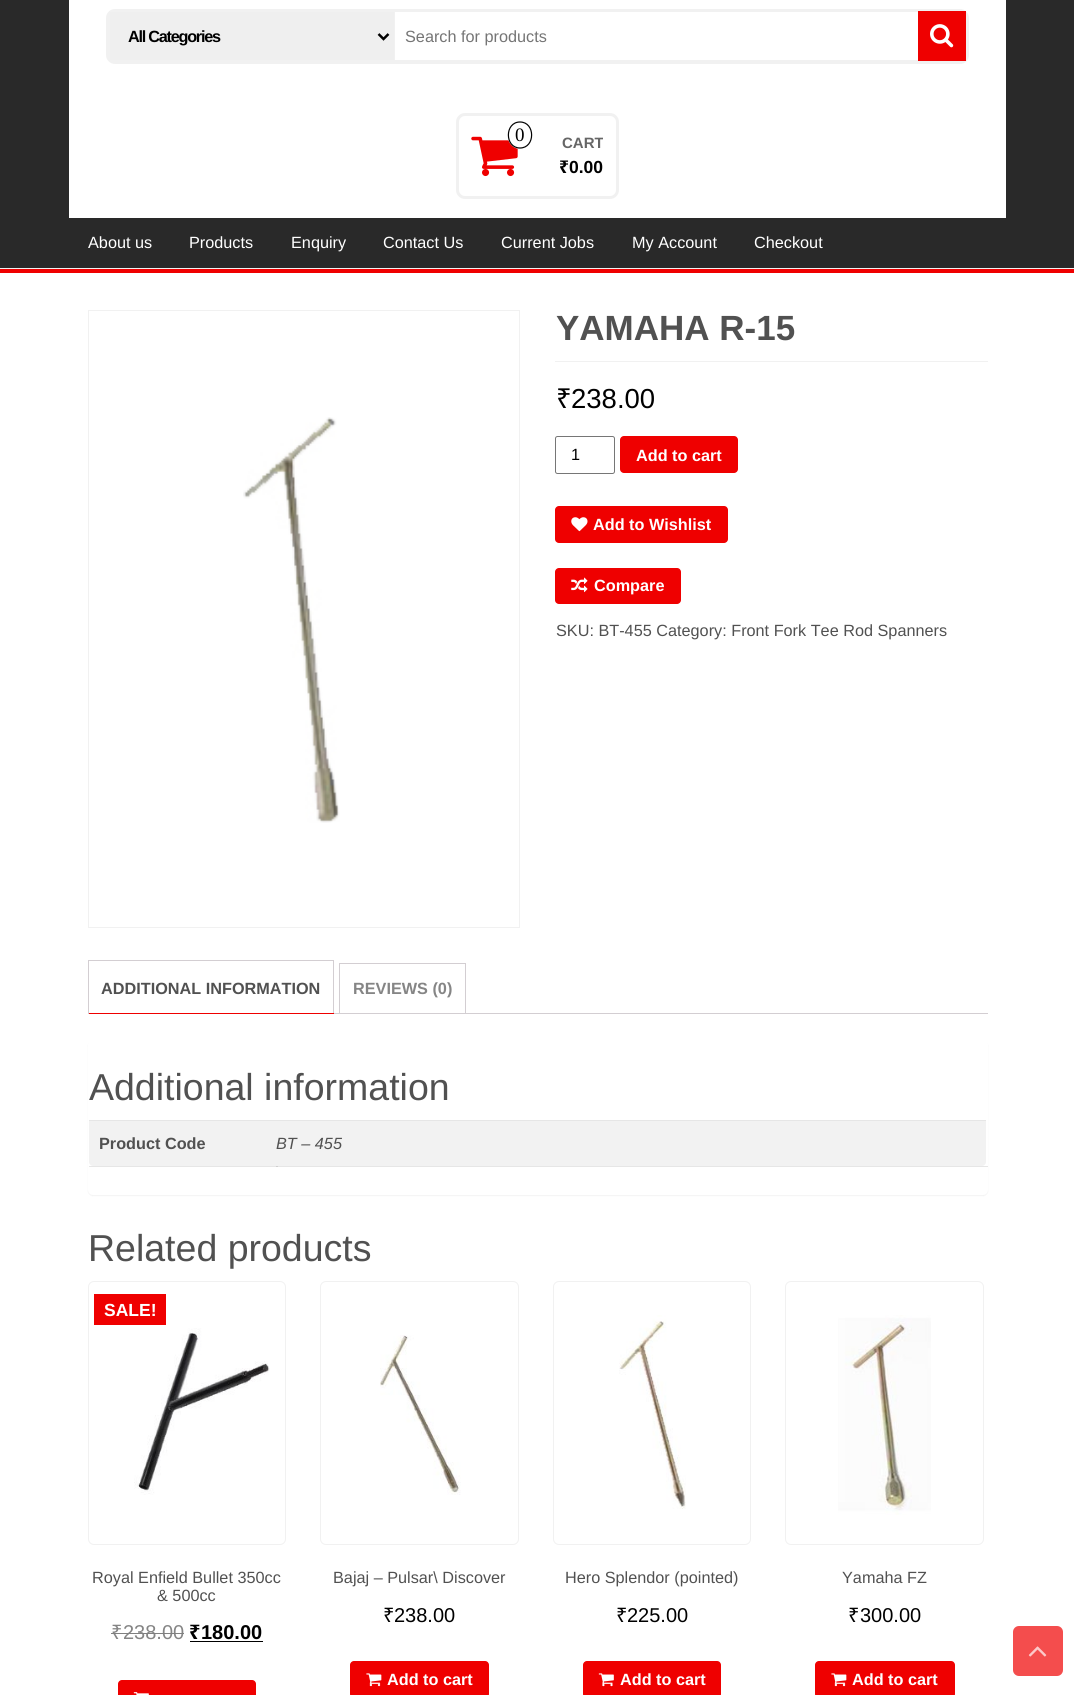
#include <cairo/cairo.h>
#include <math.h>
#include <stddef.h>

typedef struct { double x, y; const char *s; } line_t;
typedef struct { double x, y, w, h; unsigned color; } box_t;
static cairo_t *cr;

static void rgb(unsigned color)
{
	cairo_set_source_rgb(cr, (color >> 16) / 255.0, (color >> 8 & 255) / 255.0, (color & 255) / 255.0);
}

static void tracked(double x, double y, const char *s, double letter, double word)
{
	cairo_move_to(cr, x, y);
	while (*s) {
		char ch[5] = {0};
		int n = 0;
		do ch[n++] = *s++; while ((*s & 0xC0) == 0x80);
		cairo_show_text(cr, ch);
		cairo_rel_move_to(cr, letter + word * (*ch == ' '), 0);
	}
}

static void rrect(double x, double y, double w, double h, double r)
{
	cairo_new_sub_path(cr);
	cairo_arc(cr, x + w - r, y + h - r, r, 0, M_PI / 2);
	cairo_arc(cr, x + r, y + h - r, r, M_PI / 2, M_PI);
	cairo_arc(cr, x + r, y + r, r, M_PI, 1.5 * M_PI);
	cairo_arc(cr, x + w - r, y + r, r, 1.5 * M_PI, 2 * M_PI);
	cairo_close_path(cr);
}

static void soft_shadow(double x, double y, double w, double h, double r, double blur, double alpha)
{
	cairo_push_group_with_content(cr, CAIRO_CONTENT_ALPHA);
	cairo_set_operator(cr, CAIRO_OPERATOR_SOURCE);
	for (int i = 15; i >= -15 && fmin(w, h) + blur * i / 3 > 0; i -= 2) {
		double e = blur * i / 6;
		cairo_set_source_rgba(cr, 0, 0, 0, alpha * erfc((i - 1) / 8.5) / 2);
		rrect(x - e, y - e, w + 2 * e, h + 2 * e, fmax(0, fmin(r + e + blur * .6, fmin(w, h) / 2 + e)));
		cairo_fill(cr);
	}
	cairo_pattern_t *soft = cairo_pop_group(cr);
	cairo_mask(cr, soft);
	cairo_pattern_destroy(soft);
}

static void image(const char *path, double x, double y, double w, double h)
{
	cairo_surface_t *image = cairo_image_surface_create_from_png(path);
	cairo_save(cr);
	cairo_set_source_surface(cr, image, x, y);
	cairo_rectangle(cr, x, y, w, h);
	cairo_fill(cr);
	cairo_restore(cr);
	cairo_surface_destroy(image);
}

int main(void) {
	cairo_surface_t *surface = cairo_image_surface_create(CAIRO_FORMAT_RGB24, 1074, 1695);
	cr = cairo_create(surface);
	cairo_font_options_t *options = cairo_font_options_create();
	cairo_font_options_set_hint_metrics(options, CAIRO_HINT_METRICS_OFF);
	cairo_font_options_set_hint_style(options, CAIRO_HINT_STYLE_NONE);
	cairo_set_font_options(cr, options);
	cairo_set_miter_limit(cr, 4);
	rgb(0xffffff);
	cairo_paint(cr);
	{
		static const box_t items[] = {
			{0, 269, 1074, 4, 0xef0000},
			{0, 0, 1074, 268, 0x292929},
			{0, 268, 1074, 1, 0xf1f1f1},
			{69, 0, 937, 218, 0xffffff},
		};
		for (size_t i = 0; i < sizeof items / sizeof *items; i++) {
			rgb(items[i].color);
			cairo_rectangle(cr, items[i].x, items[i].y, items[i].w, items[i].h);
			cairo_fill(cr);
		}
	}
	rrect(107.5, 10.5, 860, 52, 7.5);
	rgb(0xf1f1f1);
	cairo_set_line_width(cr, 3);
	cairo_stroke(cr);
	rgb(0xefefef);
	cairo_rectangle(cr, 109.5, 11.5, 285, 49);
	cairo_fill_preserve(cr);
	rgb(0xf1f1f1);
	cairo_set_line_width(cr, 1);
	cairo_stroke(cr);
	cairo_new_path(cr);
	cairo_move_to(cr, 378.5, 34);
	cairo_line_to(cr, 383.5, 39);
	cairo_line_to(cr, 388.5, 34);
	rgb(0x000000);
	cairo_set_line_width(cr, 2.5);
	cairo_stroke(cr);
	cairo_rectangle(cr, 394.5, 11.5, 570, 49);
	rgb(0xf1f1f1);
	cairo_set_line_width(cr, 1);
	cairo_stroke(cr);
	rgb(0xef0000);
	cairo_rectangle(cr, 918, 11, 48, 50);
	cairo_fill(cr);
	image("img/1.png", 930, 24, 24, 24);
	rrect(457.5, 114.5, 160, 83, 7.5);
	rgb(0xf1f1f1);
	cairo_set_line_width(cr, 3);
	cairo_stroke(cr);
	image("img/2.png", 471, 136, 47, 41);
	rgb(0xffffff);
	cairo_new_path(cr);
	cairo_move_to(cr, 520, 121);
	cairo_curve_to(cr, 527, 121, 532.5, 127.5, 532.5, 135);
	cairo_curve_to(cr, 532.5, 142.5, 527, 149, 520, 149);
	cairo_curve_to(cr, 513, 149, 507.5, 142.5, 507.5, 135);
	cairo_curve_to(cr, 507.5, 127.5, 513, 121, 520, 121);
	cairo_close_path(cr);
	cairo_fill(cr);
	cairo_new_path(cr);
	cairo_move_to(cr, 520, 122);
	cairo_curve_to(cr, 535.5, 122, 535.5, 148, 520, 148);
	cairo_curve_to(cr, 504.5, 148, 504.5, 122, 520, 122);
	cairo_close_path(cr);
	rgb(0x000000);
	cairo_set_line_width(cr, 1.2);
	cairo_stroke(cr);
	cairo_rectangle(cr, 88.5, 310.5, 431, 617);
	rgb(0xf1f1f1);
	cairo_set_line_width(cr, 1);
	cairo_stroke(cr);
	image("img/3.png", 243, 417, 97, 406);
	cairo_rectangle(cr, 555, 361, 433, 1);
	cairo_fill(cr);
	rrect(555.5, 436.5, 59, 37, 2);
	rgb(0x767676);
	cairo_stroke(cr);
	rgb(0xef0000);
	rrect(620, 436, 118, 37, 4);
	cairo_fill(cr);
	rrect(555, 506, 173, 37, 4);
	cairo_fill(cr);
	image("img/4.png", 571, 517, 17, 15);
	rrect(555, 568, 126, 36, 4);
	cairo_fill(cr);
	image("img/5.png", 571, 577, 17, 16);
	{
		static const box_t items[] = {
			{88, 960, 246, 1, 0xd3ced2},
			{333, 960, 1, 54, 0xd3ced2},
			{88, 1013, 246, 1, 0xef0000},
			{88, 960, 1, 54, 0xd3ced2},
		};
		for (size_t i = 0; i < sizeof items / sizeof *items; i++) {
			rgb(items[i].color);
			cairo_rectangle(cr, items[i].x, items[i].y, items[i].w, items[i].h);
			cairo_fill(cr);
		}
	}
	cairo_rectangle(cr, 339.5, 963.5, 126, 50);
	cairo_stroke(cr);
	cairo_rectangle(cr, 334, 1013, 654, 1);
	cairo_fill(cr);
	rgb(0x000000);
	soft_shadow(88, 1041, 900, 155, 5, 0.5, 0.05);
	rgb(0xffffff);
	rrect(88, 1040, 900, 155, 5);
	cairo_fill(cr);
	rgb(0xe6e6e6);
	cairo_rectangle(cr, 89, 1166, 899, 1);
	cairo_fill(cr);
	cairo_rectangle(cr, 89, 1120, 897, 1);
	cairo_fill(cr);
	rgb(0xf2f2f2);
	cairo_new_path(cr);
	cairo_move_to(cr, 89, 1121);
	cairo_line_to(cr, 986, 1121);
	cairo_line_to(cr, 986, 1162);
	cairo_curve_to(cr, 986, 1164, 984, 1166, 982, 1166);
	cairo_line_to(cr, 93, 1166);
	cairo_curve_to(cr, 91, 1166, 89, 1164, 89, 1162);
	cairo_close_path(cr);
	cairo_fill(cr);
	rgb(0xcfcfcf);
	cairo_rectangle(cr, 276, 1166, 2, 1);
	cairo_fill(cr);
	rrect(88.5, 1281.5, 197, 263, 5.5);
	rgb(0xf1f1f1);
	cairo_stroke(cr);
	image("img/6.png", 134, 1328, 136, 167);
	rgb(0xef0000);
	cairo_rectangle(cr, 94, 1294, 72, 31);
	cairo_fill(cr);
	rgb(0x000000);
	cairo_rectangle(cr, 190, 1641, 73, 1);
	cairo_fill(cr);
	rgb(0xef0000);
	rrect(118, 1680, 138, 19, 4);
	cairo_fill(cr);
	image("img/7.png", 133, 1692, 16, 3);
	rrect(320.5, 1281.5, 198, 263, 5.5);
	rgb(0xf1f1f1);
	cairo_stroke(cr);
	image("img/8.png", 380, 1335, 81, 160);
	rgb(0xef0000);
	rrect(350, 1661, 139, 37, 4);
	cairo_fill(cr);
	image("img/9.png", 366, 1673, 16, 14);
	rrect(553.5, 1281.5, 197, 263, 5.5);
	rgb(0xf1f1f1);
	cairo_stroke(cr);
	image("img/10.png", 619, 1315, 67, 194);
	rgb(0xef0000);
	rrect(583, 1661, 138, 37, 4);
	cairo_fill(cr);
	image("img/11.png", 598, 1673, 16, 14);
	rrect(785.5, 1281.5, 198, 263, 5.5);
	rgb(0xf1f1f1);
	cairo_stroke(cr);
	image("img/12.png", 838, 1315, 93, 200);
	rgb(0xef0000);
	rrect(815, 1661, 140, 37, 4);
	cairo_fill(cr);
	image("img/9.png", 831, 1673, 16, 14);
	rgb(0xf44d4d);
	rrect(1013, 1626, 50, 50, 6);
	cairo_fill(cr);
	image("img/13.png", 1028, 1646, 19, 11);
	cairo_select_font_face(cr, "Liberation Sans", CAIRO_FONT_SLANT_NORMAL, CAIRO_FONT_WEIGHT_BOLD);
	cairo_set_font_size(cr, 16.25);
	rgb(0x000000);
	tracked(128, 42, "All Categories", -1.25, 0);
	cairo_select_font_face(cr, "Liberation Sans", CAIRO_FONT_SLANT_NORMAL, CAIRO_FONT_WEIGHT_NORMAL);
	rgb(0x757575);
	cairo_move_to(cr, 405, 42);
	cairo_show_text(cr, "Search for products");
	cairo_select_font_face(cr, "Liberation Serif", CAIRO_FONT_SLANT_NORMAL, CAIRO_FONT_WEIGHT_NORMAL);
	cairo_set_font_size(cr, 19);
	rgb(0x000000);
	cairo_move_to(cr, 515, 141);
	cairo_show_text(cr, "0");
	cairo_select_font_face(cr, "Liberation Sans", CAIRO_FONT_SLANT_NORMAL, CAIRO_FONT_WEIGHT_BOLD);
	cairo_set_font_size(cr, 15);
	rgb(0x666666);
	cairo_move_to(cr, 562, 148);
	cairo_show_text(cr, "CART");
	cairo_select_font_face(cr, "Noto Sans", CAIRO_FONT_SLANT_NORMAL, CAIRO_FONT_WEIGHT_BOLD);
	cairo_set_font_size(cr, 17.5);
	rgb(0x000000);
	cairo_move_to(cr, 559, 173);
	cairo_show_text(cr, "₹");
	cairo_select_font_face(cr, "Liberation Sans", CAIRO_FONT_SLANT_NORMAL, CAIRO_FONT_WEIGHT_BOLD);
	cairo_move_to(cr, 569, 173);
	cairo_show_text(cr, "0.00");
	cairo_select_font_face(cr, "Liberation Sans", CAIRO_FONT_SLANT_NORMAL, CAIRO_FONT_WEIGHT_NORMAL);
	cairo_set_font_size(cr, 16.25);
	rgb(0xffffff);
	{
		static const line_t items[] = {
			{88, 248, "About us"},
			{189, 248, "Products"},
			{291, 248, "Enquiry"},
			{383, 248, "Contact Us"},
			{501, 248, "Current Jobs"},
			{632, 248, "My Account"},
			{754, 248, "Checkout"},
		};
		for (size_t i = 0; i < sizeof items / sizeof *items; i++) {
			cairo_move_to(cr, items[i].x, items[i].y);
			cairo_show_text(cr, items[i].s);
		}
	}
	cairo_select_font_face(cr, "Liberation Sans", CAIRO_FONT_SLANT_NORMAL, CAIRO_FONT_WEIGHT_BOLD);
	cairo_set_font_size(cr, 35);
	rgb(0x515151);
	cairo_move_to(cr, 556, 340);
	cairo_show_text(cr, "YAMAHA R-15");
	cairo_select_font_face(cr, "Noto Sans", CAIRO_FONT_SLANT_NORMAL, CAIRO_FONT_WEIGHT_NORMAL);
	cairo_set_font_size(cr, 27.5);
	rgb(0x000000);
	cairo_move_to(cr, 556, 408);
	cairo_show_text(cr, "₹");
	cairo_select_font_face(cr, "Liberation Sans", CAIRO_FONT_SLANT_NORMAL, CAIRO_FONT_WEIGHT_NORMAL);
	cairo_move_to(cr, 571, 408);
	cairo_show_text(cr, "238.00");
	cairo_set_font_size(cr, 16.25);
	cairo_move_to(cr, 571, 460);
	cairo_show_text(cr, "1");
	cairo_select_font_face(cr, "Liberation Sans", CAIRO_FONT_SLANT_NORMAL, CAIRO_FONT_WEIGHT_BOLD);
	rgb(0xffffff);
	{
		static const line_t items[] = {
			{636, 461, "Add to cart"},
			{593, 530, "Add to Wishlist"},
			{594, 591, "Compare"},
		};
		for (size_t i = 0; i < sizeof items / sizeof *items; i++) {
			cairo_move_to(cr, items[i].x, items[i].y);
			cairo_show_text(cr, items[i].s);
		}
	}
	cairo_select_font_face(cr, "Liberation Sans", CAIRO_FONT_SLANT_NORMAL, CAIRO_FONT_WEIGHT_NORMAL);
	rgb(0x515151);
	cairo_move_to(cr, 556, 636);
	cairo_show_text(cr, "SKU: BT-455 Category: Front Fork Tee Rod Spanners");
	cairo_select_font_face(cr, "Liberation Sans", CAIRO_FONT_SLANT_NORMAL, CAIRO_FONT_WEIGHT_BOLD);
	cairo_move_to(cr, 101, 994);
	cairo_show_text(cr, "ADDITIONAL INFORMATION");
	rgb(0x858585);
	cairo_move_to(cr, 353, 994);
	cairo_show_text(cr, "REVIEWS (0)");
	cairo_select_font_face(cr, "Liberation Sans", CAIRO_FONT_SLANT_NORMAL, CAIRO_FONT_WEIGHT_NORMAL);
	cairo_set_font_size(cr, 37.5);
	rgb(0x515151);
	cairo_move_to(cr, 89, 1100);
	cairo_show_text(cr, "Additional information");
	cairo_select_font_face(cr, "Liberation Sans", CAIRO_FONT_SLANT_NORMAL, CAIRO_FONT_WEIGHT_BOLD);
	cairo_set_font_size(cr, 16.25);
	cairo_move_to(cr, 99, 1149);
	cairo_show_text(cr, "Product Code");
	cairo_select_font_face(cr, "Liberation Sans", CAIRO_FONT_SLANT_ITALIC, CAIRO_FONT_WEIGHT_NORMAL);
	cairo_move_to(cr, 276, 1149);
	cairo_show_text(cr, "BT – 455");
	cairo_select_font_face(cr, "Liberation Sans", CAIRO_FONT_SLANT_NORMAL, CAIRO_FONT_WEIGHT_NORMAL);
	cairo_set_font_size(cr, 37.5);
	cairo_move_to(cr, 88, 1261);
	cairo_show_text(cr, "Related products");
	cairo_select_font_face(cr, "Liberation Sans", CAIRO_FONT_SLANT_NORMAL, CAIRO_FONT_WEIGHT_BOLD);
	cairo_set_font_size(cr, 17.5);
	rgb(0xffffff);
	cairo_move_to(cr, 104, 1316);
	cairo_show_text(cr, "SALE!");
	cairo_select_font_face(cr, "Liberation Sans", CAIRO_FONT_SLANT_NORMAL, CAIRO_FONT_WEIGHT_NORMAL);
	cairo_set_font_size(cr, 16.25);
	rgb(0x515151);
	cairo_move_to(cr, 92, 1583);
	cairo_show_text(cr, "Royal Enfield Bullet 350cc");
	cairo_move_to(cr, 157, 1601);
	cairo_show_text(cr, "& 500cc");
	cairo_select_font_face(cr, "Noto Sans", CAIRO_FONT_SLANT_NORMAL, CAIRO_FONT_WEIGHT_NORMAL);
	cairo_set_font_size(cr, 20);
	rgb(0x858585);
	cairo_move_to(cr, 111, 1639);
	cairo_show_text(cr, "₹");
	cairo_select_font_face(cr, "Liberation Sans", CAIRO_FONT_SLANT_NORMAL, CAIRO_FONT_WEIGHT_NORMAL);
	cairo_move_to(cr, 123, 1639);
	cairo_show_text(cr, "238.00");
	rgb(0x808080);
	cairo_rectangle(cr, 111, 1633, 12, 1);
	cairo_fill(cr);
	cairo_rectangle(cr, 123, 1633, 61, 1);
	cairo_fill(cr);
	cairo_select_font_face(cr, "Noto Sans", CAIRO_FONT_SLANT_NORMAL, CAIRO_FONT_WEIGHT_BOLD);
	rgb(0x000000);
	cairo_move_to(cr, 189, 1639);
	cairo_show_text(cr, "₹");
	cairo_select_font_face(cr, "Liberation Sans", CAIRO_FONT_SLANT_NORMAL, CAIRO_FONT_WEIGHT_BOLD);
	cairo_move_to(cr, 201, 1639);
	cairo_show_text(cr, "180.00");
	cairo_select_font_face(cr, "Liberation Sans", CAIRO_FONT_SLANT_NORMAL, CAIRO_FONT_WEIGHT_NORMAL);
	cairo_set_font_size(cr, 16.25);
	rgb(0x515151);
	cairo_move_to(cr, 333, 1583);
	cairo_show_text(cr, "Bajaj – Pulsar\\ Discover");
	cairo_select_font_face(cr, "Noto Sans", CAIRO_FONT_SLANT_NORMAL, CAIRO_FONT_WEIGHT_NORMAL);
	cairo_set_font_size(cr, 20);
	rgb(0x000000);
	cairo_move_to(cr, 383, 1622);
	cairo_show_text(cr, "₹");
	cairo_select_font_face(cr, "Liberation Sans", CAIRO_FONT_SLANT_NORMAL, CAIRO_FONT_WEIGHT_NORMAL);
	cairo_move_to(cr, 394, 1622);
	cairo_show_text(cr, "238.00");
	cairo_select_font_face(cr, "Liberation Sans", CAIRO_FONT_SLANT_NORMAL, CAIRO_FONT_WEIGHT_BOLD);
	cairo_set_font_size(cr, 16.25);
	rgb(0xffffff);
	cairo_move_to(cr, 387, 1685);
	cairo_show_text(cr, "Add to cart");
	cairo_select_font_face(cr, "Liberation Sans", CAIRO_FONT_SLANT_NORMAL, CAIRO_FONT_WEIGHT_NORMAL);
	rgb(0x515151);
	cairo_move_to(cr, 565, 1583);
	cairo_show_text(cr, "Hero Splendor (pointed)");
	cairo_select_font_face(cr, "Noto Sans", CAIRO_FONT_SLANT_NORMAL, CAIRO_FONT_WEIGHT_NORMAL);
	cairo_set_font_size(cr, 20);
	rgb(0x000000);
	cairo_move_to(cr, 616, 1622);
	cairo_show_text(cr, "₹");
	cairo_select_font_face(cr, "Liberation Sans", CAIRO_FONT_SLANT_NORMAL, CAIRO_FONT_WEIGHT_NORMAL);
	cairo_move_to(cr, 627, 1622);
	cairo_show_text(cr, "225.00");
	cairo_select_font_face(cr, "Liberation Sans", CAIRO_FONT_SLANT_NORMAL, CAIRO_FONT_WEIGHT_BOLD);
	cairo_set_font_size(cr, 16.25);
	rgb(0xffffff);
	cairo_move_to(cr, 620, 1685);
	cairo_show_text(cr, "Add to cart");
	cairo_select_font_face(cr, "Liberation Sans", CAIRO_FONT_SLANT_NORMAL, CAIRO_FONT_WEIGHT_NORMAL);
	rgb(0x515151);
	cairo_move_to(cr, 842, 1583);
	cairo_show_text(cr, "Yamaha FZ");
	cairo_select_font_face(cr, "Noto Sans", CAIRO_FONT_SLANT_NORMAL, CAIRO_FONT_WEIGHT_NORMAL);
	cairo_set_font_size(cr, 20);
	rgb(0x000000);
	cairo_move_to(cr, 848, 1622);
	cairo_show_text(cr, "₹");
	cairo_select_font_face(cr, "Liberation Sans", CAIRO_FONT_SLANT_NORMAL, CAIRO_FONT_WEIGHT_NORMAL);
	cairo_move_to(cr, 860, 1622);
	cairo_show_text(cr, "300.00");
	cairo_select_font_face(cr, "Liberation Sans", CAIRO_FONT_SLANT_NORMAL, CAIRO_FONT_WEIGHT_BOLD);
	cairo_set_font_size(cr, 16.25);
	rgb(0xffffff);
	cairo_move_to(cr, 852, 1685);
	cairo_show_text(cr, "Add to cart");
	cairo_surface_write_to_png(surface, "page.png");
	cairo_font_options_destroy(options);
	cairo_destroy(cr);
	cairo_surface_destroy(surface);
	return 0;
}
